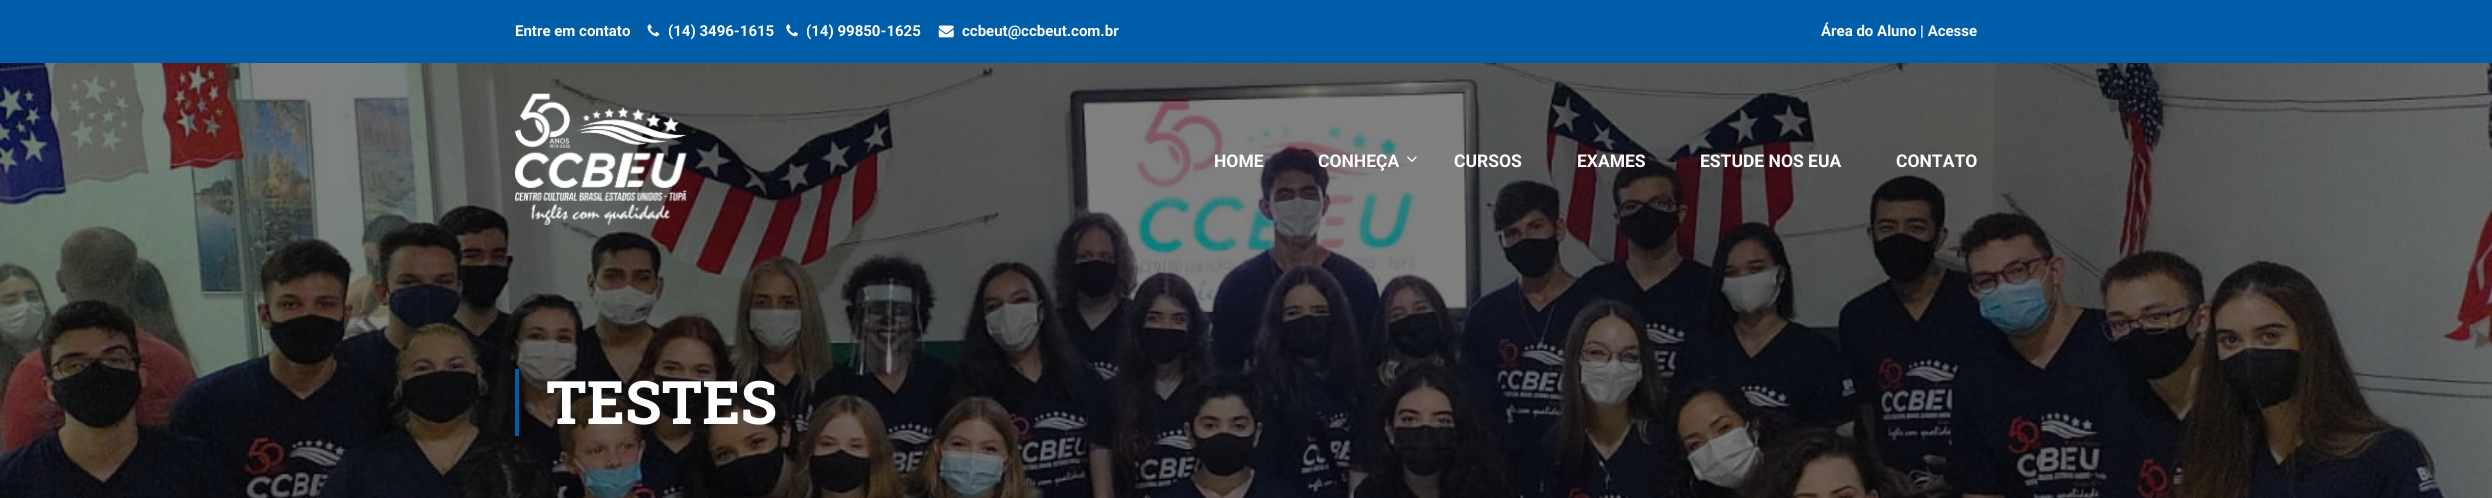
#include <cairo/cairo.h>
#include <math.h>
#include <stddef.h>

typedef struct { double x, y; const char *s; } line_t;
static cairo_t *cr;

static void rgb(unsigned color)
{
	cairo_set_source_rgb(cr, (color >> 16) / 255.0, (color >> 8 & 255) / 255.0, (color & 255) / 255.0);
}

static void image(const char *path, double x, double y, double w, double h)
{
	cairo_surface_t *image = cairo_image_surface_create_from_png(path);
	cairo_save(cr);
	cairo_set_source_surface(cr, image, x, y);
	cairo_rectangle(cr, x, y, w, h);
	cairo_fill(cr);
	cairo_restore(cr);
	cairo_surface_destroy(image);
}

int main(void) {
	cairo_surface_t *surface = cairo_image_surface_create(CAIRO_FORMAT_RGB24, 2492, 498);
	cr = cairo_create(surface);
	cairo_font_options_t *options = cairo_font_options_create();
	cairo_font_options_set_hint_metrics(options, CAIRO_HINT_METRICS_OFF);
	cairo_font_options_set_hint_style(options, CAIRO_HINT_STYLE_NONE);
	cairo_set_font_options(cr, options);
	cairo_set_miter_limit(cr, 4);
	rgb(0xffffff);
	cairo_paint(cr);
	rgb(0x005daa);
	cairo_rectangle(cr, 0, 0, 2492, 63);
	cairo_fill(cr);
	image("img/1.png", 647, 24, 13, 13);
	image("img/2.png", 786, 24, 12, 13);
	image("img/3.png", 938, 25, 16, 13);
	image("img/6.png", 0, 63, 2492, 435);
	image("img/4.png", 515, 93, 172, 132);
	image("img/5.png", 1407, 156, 10, 6);
	cairo_rectangle(cr, 515, 369, 4, 67);
	cairo_fill(cr);
	cairo_select_font_face(cr, "Roboto", CAIRO_FONT_SLANT_NORMAL, CAIRO_FONT_WEIGHT_BOLD);
	cairo_set_font_size(cr, 15);
	rgb(0xffffff);
	{
		static const line_t items[] = {
			{515, 36, "Entre em contato"},
			{668, 36, "(14) 3496-1615"},
			{806, 36, "(14) 99850-1625"},
			{962, 36, "ccbeut@ccbeut.com.br"},
			{1821, 36, "Área do Aluno | Acesse"},
		};
		for (size_t i = 0; i < sizeof items / sizeof *items; i++) {
			cairo_move_to(cr, items[i].x, items[i].y);
			cairo_show_text(cr, items[i].s);
		}
	}
	cairo_set_font_size(cr, 17.5);
	{
		static const line_t items[] = {
			{1214, 167, "HOME"},
			{1318, 167, "CONHEÇA"},
			{1454, 167, "CURSOS"},
			{1577, 167, "EXAMES"},
			{1700, 167, "ESTUDE NOS EUA"},
			{1896, 167, "CONTATO"},
		};
		for (size_t i = 0; i < sizeof items / sizeof *items; i++) {
			cairo_move_to(cr, items[i].x, items[i].y);
			cairo_show_text(cr, items[i].s);
		}
	}
	cairo_select_font_face(cr, "Roboto Slab", CAIRO_FONT_SLANT_NORMAL, CAIRO_FONT_WEIGHT_BOLD);
	cairo_set_font_size(cr, 60);
	cairo_move_to(cr, 546, 424);
	cairo_show_text(cr, "TESTES");
	cairo_surface_write_to_png(surface, "page.png");
	cairo_font_options_destroy(options);
	cairo_destroy(cr);
	cairo_surface_destroy(surface);
	return 0;
}
